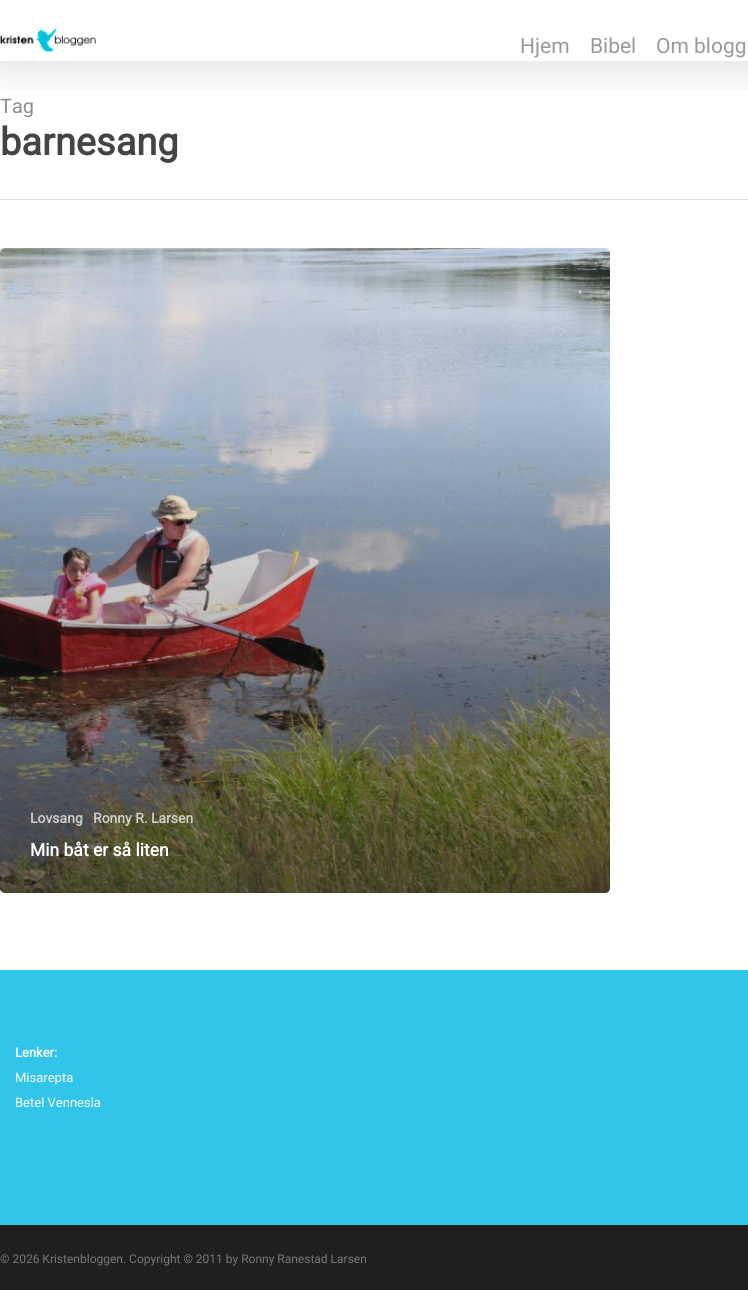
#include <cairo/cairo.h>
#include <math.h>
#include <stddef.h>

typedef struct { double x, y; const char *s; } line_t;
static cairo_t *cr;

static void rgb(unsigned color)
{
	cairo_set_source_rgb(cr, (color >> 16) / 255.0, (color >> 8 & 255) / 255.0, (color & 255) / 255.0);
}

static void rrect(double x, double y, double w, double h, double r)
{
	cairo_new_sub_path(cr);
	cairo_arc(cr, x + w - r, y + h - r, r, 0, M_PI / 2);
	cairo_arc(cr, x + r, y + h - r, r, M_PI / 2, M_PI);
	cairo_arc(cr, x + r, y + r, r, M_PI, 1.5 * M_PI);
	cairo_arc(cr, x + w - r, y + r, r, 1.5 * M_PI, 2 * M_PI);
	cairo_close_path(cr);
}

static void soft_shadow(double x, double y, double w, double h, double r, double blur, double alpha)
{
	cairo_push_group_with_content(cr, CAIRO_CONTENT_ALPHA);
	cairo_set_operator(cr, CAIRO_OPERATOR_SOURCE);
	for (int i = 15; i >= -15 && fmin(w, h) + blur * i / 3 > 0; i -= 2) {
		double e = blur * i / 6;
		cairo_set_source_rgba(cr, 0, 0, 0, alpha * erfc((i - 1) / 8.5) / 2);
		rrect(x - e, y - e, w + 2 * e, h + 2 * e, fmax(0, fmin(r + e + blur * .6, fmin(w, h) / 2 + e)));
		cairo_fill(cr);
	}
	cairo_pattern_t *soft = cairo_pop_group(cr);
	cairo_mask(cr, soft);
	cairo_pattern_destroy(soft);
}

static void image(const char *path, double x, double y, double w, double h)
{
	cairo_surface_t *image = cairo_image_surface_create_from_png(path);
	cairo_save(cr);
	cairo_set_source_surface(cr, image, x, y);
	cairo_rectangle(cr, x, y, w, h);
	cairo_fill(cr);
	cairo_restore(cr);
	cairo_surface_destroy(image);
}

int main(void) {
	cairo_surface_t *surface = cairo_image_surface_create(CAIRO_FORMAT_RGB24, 748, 1290);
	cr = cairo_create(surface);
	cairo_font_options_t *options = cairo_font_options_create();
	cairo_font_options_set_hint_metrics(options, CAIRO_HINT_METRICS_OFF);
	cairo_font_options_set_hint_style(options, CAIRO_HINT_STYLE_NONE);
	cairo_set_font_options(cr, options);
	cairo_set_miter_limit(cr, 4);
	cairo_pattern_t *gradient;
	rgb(0xffffff);
	cairo_paint(cr);
	cairo_save(cr);
	cairo_rectangle(cr, 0, 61, 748, 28);
	cairo_clip(cr);
	rgb(0x000000);
	soft_shadow(0, 3, 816, 61, 0, 22.5, 0.15);
	cairo_restore(cr);
	image("img/1.png", 0, 28, 96, 24);
	rgb(0xd9d9d9);
	cairo_rectangle(cr, 0, 199, 748, 1);
	cairo_fill(cr);
	image("img/2.png", 0, 248, 610, 645);
	gradient = cairo_pattern_create_linear(306, 410, 307, 897);
	cairo_pattern_add_color_stop_rgba(gradient, 0, 0.137, 0.137, 0.137, 0);
	cairo_pattern_add_color_stop_rgba(gradient, 1, 0.137, 0.137, 0.137, 0.65);
	cairo_set_source(cr, gradient);
	cairo_pattern_destroy(gradient);
	cairo_new_path(cr);
	cairo_move_to(cr, 0, 410);
	cairo_line_to(cr, 610, 410);
	cairo_line_to(cr, 610, 888);
	cairo_curve_to(cr, 610, 891, 608, 893, 605, 893);
	cairo_line_to(cr, 5, 893);
	cairo_curve_to(cr, 2, 893, 0, 891, 0, 888);
	cairo_close_path(cr);
	cairo_fill(cr);
	rgb(0x31c5ea);
	cairo_rectangle(cr, 0, 970, 748, 255);
	cairo_fill(cr);
	rgb(0x1f1f1f);
	cairo_rectangle(cr, 0, 1225, 748, 65);
	cairo_fill(cr);
	cairo_select_font_face(cr, "Roboto", CAIRO_FONT_SLANT_NORMAL, CAIRO_FONT_WEIGHT_NORMAL);
	cairo_set_font_size(cr, 21);
	rgb(0x999999);
	{
		static const line_t items[] = {
			{520, 53, "Hjem"},
			{590, 53, "Bibel"},
			{656, 53, "Om blogg"},
		};
		for (size_t i = 0; i < sizeof items / sizeof *items; i++) {
			cairo_move_to(cr, items[i].x, items[i].y);
			cairo_show_text(cr, items[i].s);
		}
	}
	cairo_set_font_size(cr, 20);
	rgb(0x8c8c8c);
	cairo_move_to(cr, 0, 113);
	cairo_show_text(cr, "Tag");
	cairo_select_font_face(cr, "Roboto", CAIRO_FONT_SLANT_NORMAL, CAIRO_FONT_WEIGHT_BOLD);
	cairo_set_font_size(cr, 38);
	rgb(0x444444);
	cairo_move_to(cr, 0, 155);
	cairo_show_text(cr, "barnesang");
	cairo_set_font_size(cr, 14);
	rgb(0xcdcdce);
	cairo_move_to(cr, 30, 823);
	cairo_show_text(cr, "Lovsang");
	rgb(0xd0cfc7);
	cairo_move_to(cr, 93, 823);
	cairo_show_text(cr, "Ronny R. Larsen");
	cairo_set_font_size(cr, 17.5);
	rgb(0xffffff);
	cairo_move_to(cr, 30, 856);
	cairo_show_text(cr, "Min båt er så liten");
	cairo_set_font_size(cr, 13);
	cairo_move_to(cr, 15, 1057);
	cairo_show_text(cr, "Lenker:");
	cairo_select_font_face(cr, "Roboto", CAIRO_FONT_SLANT_NORMAL, CAIRO_FONT_WEIGHT_NORMAL);
	cairo_move_to(cr, 15, 1082);
	cairo_show_text(cr, "Misarepta");
	cairo_move_to(cr, 15, 1107);
	cairo_show_text(cr, "Betel Vennesla");
	cairo_set_font_size(cr, 12);
	rgb(0x777777);
	cairo_move_to(cr, 0, 1263);
	cairo_show_text(cr, "© 2026 Kristenbloggen. Copyright © 2011 by Ronny Ranestad Larsen");
	cairo_surface_write_to_png(surface, "page.png");
	cairo_font_options_destroy(options);
	cairo_destroy(cr);
	cairo_surface_destroy(surface);
	return 0;
}
